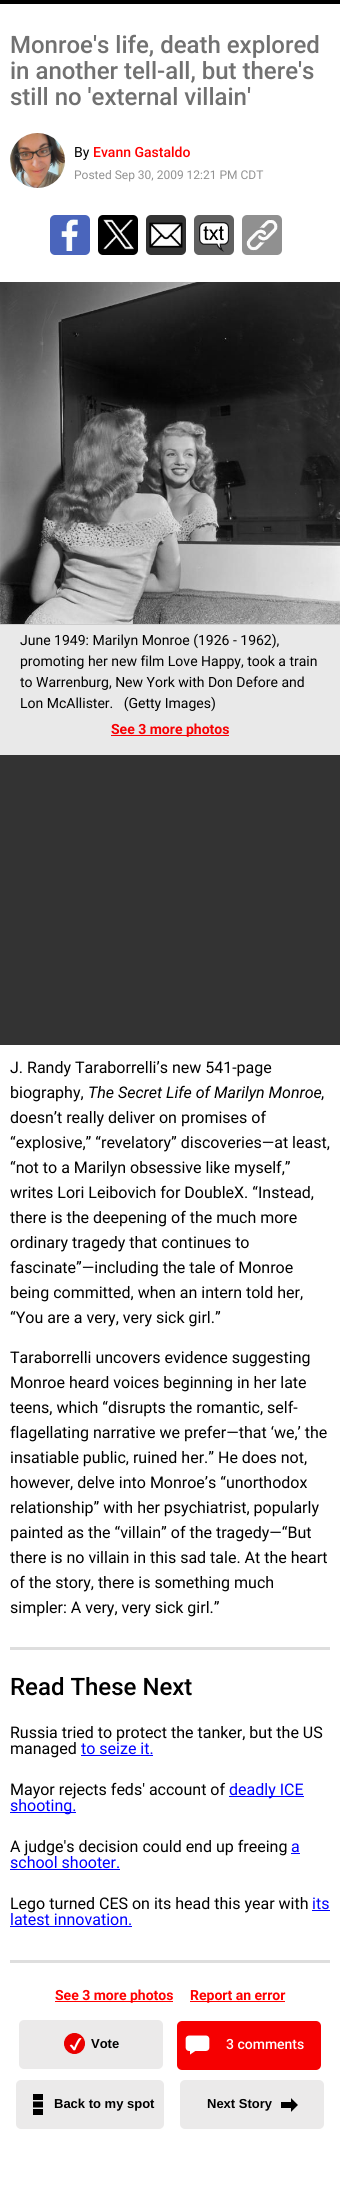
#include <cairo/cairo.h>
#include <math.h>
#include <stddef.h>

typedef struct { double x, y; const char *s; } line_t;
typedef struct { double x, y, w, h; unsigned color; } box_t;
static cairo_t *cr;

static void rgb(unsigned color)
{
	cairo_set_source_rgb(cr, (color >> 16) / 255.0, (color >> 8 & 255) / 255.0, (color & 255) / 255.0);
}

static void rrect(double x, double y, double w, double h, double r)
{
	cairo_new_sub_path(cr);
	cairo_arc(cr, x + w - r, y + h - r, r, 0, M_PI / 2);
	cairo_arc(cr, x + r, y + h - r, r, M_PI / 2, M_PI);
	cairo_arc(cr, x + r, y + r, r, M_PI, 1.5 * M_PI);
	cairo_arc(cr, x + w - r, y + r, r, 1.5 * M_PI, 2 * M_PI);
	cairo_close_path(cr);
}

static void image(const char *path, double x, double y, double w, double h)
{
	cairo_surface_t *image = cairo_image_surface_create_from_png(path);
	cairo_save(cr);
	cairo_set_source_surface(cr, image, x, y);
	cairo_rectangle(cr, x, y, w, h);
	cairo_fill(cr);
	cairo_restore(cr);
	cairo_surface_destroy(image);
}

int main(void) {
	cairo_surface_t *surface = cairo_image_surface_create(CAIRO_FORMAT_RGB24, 340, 2209);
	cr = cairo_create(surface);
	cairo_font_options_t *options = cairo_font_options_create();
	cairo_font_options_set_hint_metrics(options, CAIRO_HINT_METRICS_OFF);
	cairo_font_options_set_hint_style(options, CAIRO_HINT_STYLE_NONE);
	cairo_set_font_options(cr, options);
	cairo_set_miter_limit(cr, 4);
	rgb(0xffffff);
	cairo_paint(cr);
	rgb(0x000000);
	cairo_rectangle(cr, 0, 0, 340, 4);
	cairo_fill(cr);
	image("img/1.png", 10, 133, 55, 55);
	rgb(0x4a65bc);
	rrect(50, 215, 40, 40, 5);
	cairo_fill(cr);
	image("img/2.png", 61, 219, 17, 32);
	rgb(0x000000);
	rrect(98, 215, 40, 40, 5);
	cairo_fill(cr);
	image("img/3.png", 103, 219, 31, 31);
	rgb(0x333333);
	rrect(146, 215, 40, 40, 5);
	cairo_fill(cr);
	image("img/4.png", 149, 222, 34, 26);
	rgb(0x606060);
	rrect(194, 215, 40, 40, 5);
	cairo_fill(cr);
	image("img/5.png", 199, 222, 30, 30);
	rgb(0x909090);
	rrect(242, 215, 40, 40, 5);
	cairo_fill(cr);
	image("img/6.png", 246, 219, 32, 32);
	rgb(0xe9e9e9);
	cairo_rectangle(cr, 0, 625, 340, 130);
	cairo_fill(cr);
	rgb(0xcccccc);
	cairo_rectangle(cr, 0, 624, 340, 1);
	cairo_fill(cr);
	image("img/7.png", 0, 282, 340, 342);
	{
		static const box_t items[] = {
			{111, 735, 118, 1, 0xf70002},
			{0, 755, 340, 290, 0x333333},
			{10, 1647, 320, 3, 0xdedede},
			{81, 1755, 72, 1, 0x0000ff},
			{229, 1796, 75, 1, 0x0000ff},
			{10, 1812, 66, 1, 0x0000ff},
			{291, 1853, 9, 1, 0x0000ff},
			{10, 1869, 110, 1, 0x0000ff},
			{312, 1910, 18, 1, 0x0000ff},
			{10, 1926, 122, 1, 0x0000ff},
			{10, 1960, 320, 3, 0xdedede},
			{55, 2001, 118, 1, 0xff0000},
			{190, 2001, 95, 1, 0xff0000},
		};
		for (size_t i = 0; i < sizeof items / sizeof *items; i++) {
			rgb(items[i].color);
			cairo_rectangle(cr, items[i].x, items[i].y, items[i].w, items[i].h);
			cairo_fill(cr);
		}
	}
	rgb(0xebeaea);
	rrect(19, 2020, 144, 49, 5);
	cairo_fill(cr);
	image("img/8.png", 64, 2033, 21, 21);
	rgb(0xf60001);
	rrect(177, 2021, 144, 49, 5);
	cairo_fill(cr);
	image("img/9.png", 185, 2035, 25, 20);
	rgb(0xebeaea);
	rrect(16, 2080, 148, 49, 5);
	cairo_fill(cr);
	image("img/10.png", 33, 2094, 10, 21);
	rrect(180, 2080, 144, 49, 5);
	cairo_fill(cr);
	image("img/11.png", 281, 2098, 17, 14);
	cairo_select_font_face(cr, "Roboto Medium", CAIRO_FONT_SLANT_NORMAL, CAIRO_FONT_WEIGHT_NORMAL);
	cairo_set_font_size(cr, 24);
	rgb(0x717171);
	{
		static const line_t items[] = {
			{10, 53, "Monroe's life, death explored"},
			{10, 79, "in another tell-all, but there's"},
			{10, 105, "still no 'external villain'"},
		};
		for (size_t i = 0; i < sizeof items / sizeof *items; i++) {
			cairo_move_to(cr, items[i].x, items[i].y);
			cairo_show_text(cr, items[i].s);
		}
	}
	cairo_select_font_face(cr, "Roboto", CAIRO_FONT_SLANT_NORMAL, CAIRO_FONT_WEIGHT_NORMAL);
	cairo_set_font_size(cr, 14);
	rgb(0x000000);
	cairo_move_to(cr, 74, 157);
	cairo_show_text(cr, "By");
	cairo_select_font_face(cr, "Roboto Medium", CAIRO_FONT_SLANT_NORMAL, CAIRO_FONT_WEIGHT_NORMAL);
	rgb(0xff0000);
	cairo_move_to(cr, 93, 157);
	cairo_show_text(cr, "Evann Gastaldo");
	cairo_select_font_face(cr, "Roboto", CAIRO_FONT_SLANT_NORMAL, CAIRO_FONT_WEIGHT_NORMAL);
	cairo_set_font_size(cr, 12);
	rgb(0x919191);
	cairo_move_to(cr, 74, 179);
	cairo_show_text(cr, "Posted Sep 30, 2009 12:21 PM CDT");
	cairo_set_font_size(cr, 14);
	rgb(0x000000);
	{
		static const line_t items[] = {
			{20, 645, "June 1949: Marilyn Monroe (1926 - 1962),"},
			{20, 666, "promoting her new film Love Happy, took a train"},
			{20, 687, "to Warrenburg, New York with Don Defore and"},
			{20, 708, "Lon McAllister.   (Getty Images)"},
		};
		for (size_t i = 0; i < sizeof items / sizeof *items; i++) {
			cairo_move_to(cr, items[i].x, items[i].y);
			cairo_show_text(cr, items[i].s);
		}
	}
	cairo_select_font_face(cr, "Roboto", CAIRO_FONT_SLANT_NORMAL, CAIRO_FONT_WEIGHT_BOLD);
	rgb(0xf70002);
	cairo_move_to(cr, 111, 734);
	cairo_show_text(cr, "See 3 more photos");
	cairo_select_font_face(cr, "Roboto", CAIRO_FONT_SLANT_NORMAL, CAIRO_FONT_WEIGHT_NORMAL);
	cairo_set_font_size(cr, 16);
	rgb(0x000000);
	cairo_move_to(cr, 10, 1073);
	cairo_show_text(cr, "J. Randy Taraborrelli’s new 541-page");
	cairo_move_to(cr, 10, 1098);
	cairo_show_text(cr, "biography,");
	cairo_select_font_face(cr, "Roboto", CAIRO_FONT_SLANT_ITALIC, CAIRO_FONT_WEIGHT_NORMAL);
	cairo_move_to(cr, 88, 1098);
	cairo_show_text(cr, "The Secret Life of Marilyn Monroe");
	cairo_select_font_face(cr, "Roboto", CAIRO_FONT_SLANT_NORMAL, CAIRO_FONT_WEIGHT_NORMAL);
	{
		static const line_t items[] = {
			{321, 1098, ","},
			{10, 1123, "doesn’t really deliver on promises of"},
			{10, 1148, "“explosive,” “revelatory” discoveries—at least,"},
			{10, 1173, "“not to a Marilyn obsessive like myself,”"},
			{10, 1198, "writes Lori Leibovich for DoubleX. “Instead,"},
			{10, 1223, "there is the deepening of the much more"},
			{10, 1248, "ordinary tragedy that continues to"},
			{10, 1273, "fascinate”—including the tale of Monroe"},
			{10, 1298, "being committed, when an intern told her,"},
			{10, 1323, "“You are a very, very sick girl.”"},
			{10, 1363, "Taraborrelli uncovers evidence suggesting"},
			{10, 1388, "Monroe heard voices beginning in her late"},
			{10, 1413, "teens, which “disrupts the romantic, self-"},
			{10, 1438, "flagellating narrative we prefer—that ‘we,’ the"},
			{10, 1463, "insatiable public, ruined her.” He does not,"},
			{10, 1488, "however, delve into Monroe’s “unorthodox"},
			{10, 1513, "relationship” with her psychiatrist, popularly"},
			{10, 1538, "painted as the “villain” of the tragedy—“But"},
			{10, 1563, "there is no villain in this sad tale. At the heart"},
			{10, 1588, "of the story, there is something much"},
			{10, 1613, "simpler: A very, very sick girl.”"},
		};
		for (size_t i = 0; i < sizeof items / sizeof *items; i++) {
			cairo_move_to(cr, items[i].x, items[i].y);
			cairo_show_text(cr, items[i].s);
		}
	}
	cairo_select_font_face(cr, "Roboto Medium", CAIRO_FONT_SLANT_NORMAL, CAIRO_FONT_WEIGHT_NORMAL);
	cairo_set_font_size(cr, 24);
	cairo_move_to(cr, 10, 1695);
	cairo_show_text(cr, "Read These Next");
	cairo_select_font_face(cr, "Roboto", CAIRO_FONT_SLANT_NORMAL, CAIRO_FONT_WEIGHT_NORMAL);
	cairo_set_font_size(cr, 16);
	cairo_move_to(cr, 10, 1738);
	cairo_show_text(cr, "Russia tried to protect the tanker, but the US");
	cairo_move_to(cr, 10, 1754);
	cairo_show_text(cr, "managed");
	rgb(0x0000ff);
	cairo_move_to(cr, 81, 1754);
	cairo_show_text(cr, "to seize it.");
	rgb(0x000000);
	cairo_move_to(cr, 10, 1795);
	cairo_show_text(cr, "Mayor rejects feds' account of");
	rgb(0x0000ff);
	cairo_move_to(cr, 229, 1795);
	cairo_show_text(cr, "deadly ICE");
	cairo_move_to(cr, 10, 1811);
	cairo_show_text(cr, "shooting.");
	rgb(0x000000);
	cairo_move_to(cr, 10, 1852);
	cairo_show_text(cr, "A judge's decision could end up freeing");
	rgb(0x0000ff);
	cairo_move_to(cr, 291, 1852);
	cairo_show_text(cr, "a");
	cairo_move_to(cr, 10, 1868);
	cairo_show_text(cr, "school shooter.");
	rgb(0x000000);
	cairo_move_to(cr, 10, 1909);
	cairo_show_text(cr, "Lego turned CES on its head this year with");
	rgb(0x0000ff);
	cairo_move_to(cr, 312, 1909);
	cairo_show_text(cr, "its");
	cairo_move_to(cr, 10, 1925);
	cairo_show_text(cr, "latest innovation.");
	cairo_select_font_face(cr, "Roboto", CAIRO_FONT_SLANT_NORMAL, CAIRO_FONT_WEIGHT_BOLD);
	cairo_set_font_size(cr, 14);
	rgb(0xff0000);
	cairo_move_to(cr, 55, 2000);
	cairo_show_text(cr, "See 3 more photos");
	cairo_move_to(cr, 190, 2000);
	cairo_show_text(cr, "Report an error");
	cairo_select_font_face(cr, "Liberation Sans", CAIRO_FONT_SLANT_NORMAL, CAIRO_FONT_WEIGHT_BOLD);
	cairo_set_font_size(cr, 13);
	rgb(0x000000);
	cairo_move_to(cr, 91, 2048);
	cairo_show_text(cr, "Vote");
	cairo_select_font_face(cr, "Roboto Medium", CAIRO_FONT_SLANT_NORMAL, CAIRO_FONT_WEIGHT_NORMAL);
	cairo_set_font_size(cr, 14);
	rgb(0xffffff);
	cairo_move_to(cr, 226, 2049);
	cairo_show_text(cr, "3 comments");
	cairo_select_font_face(cr, "Liberation Sans", CAIRO_FONT_SLANT_NORMAL, CAIRO_FONT_WEIGHT_BOLD);
	cairo_set_font_size(cr, 13);
	rgb(0x000000);
	cairo_move_to(cr, 54, 2108);
	cairo_show_text(cr, "Back to my spot");
	cairo_move_to(cr, 207, 2108);
	cairo_show_text(cr, "Next Story");
	cairo_surface_write_to_png(surface, "page.png");
	cairo_font_options_destroy(options);
	cairo_destroy(cr);
	cairo_surface_destroy(surface);
	return 0;
}
